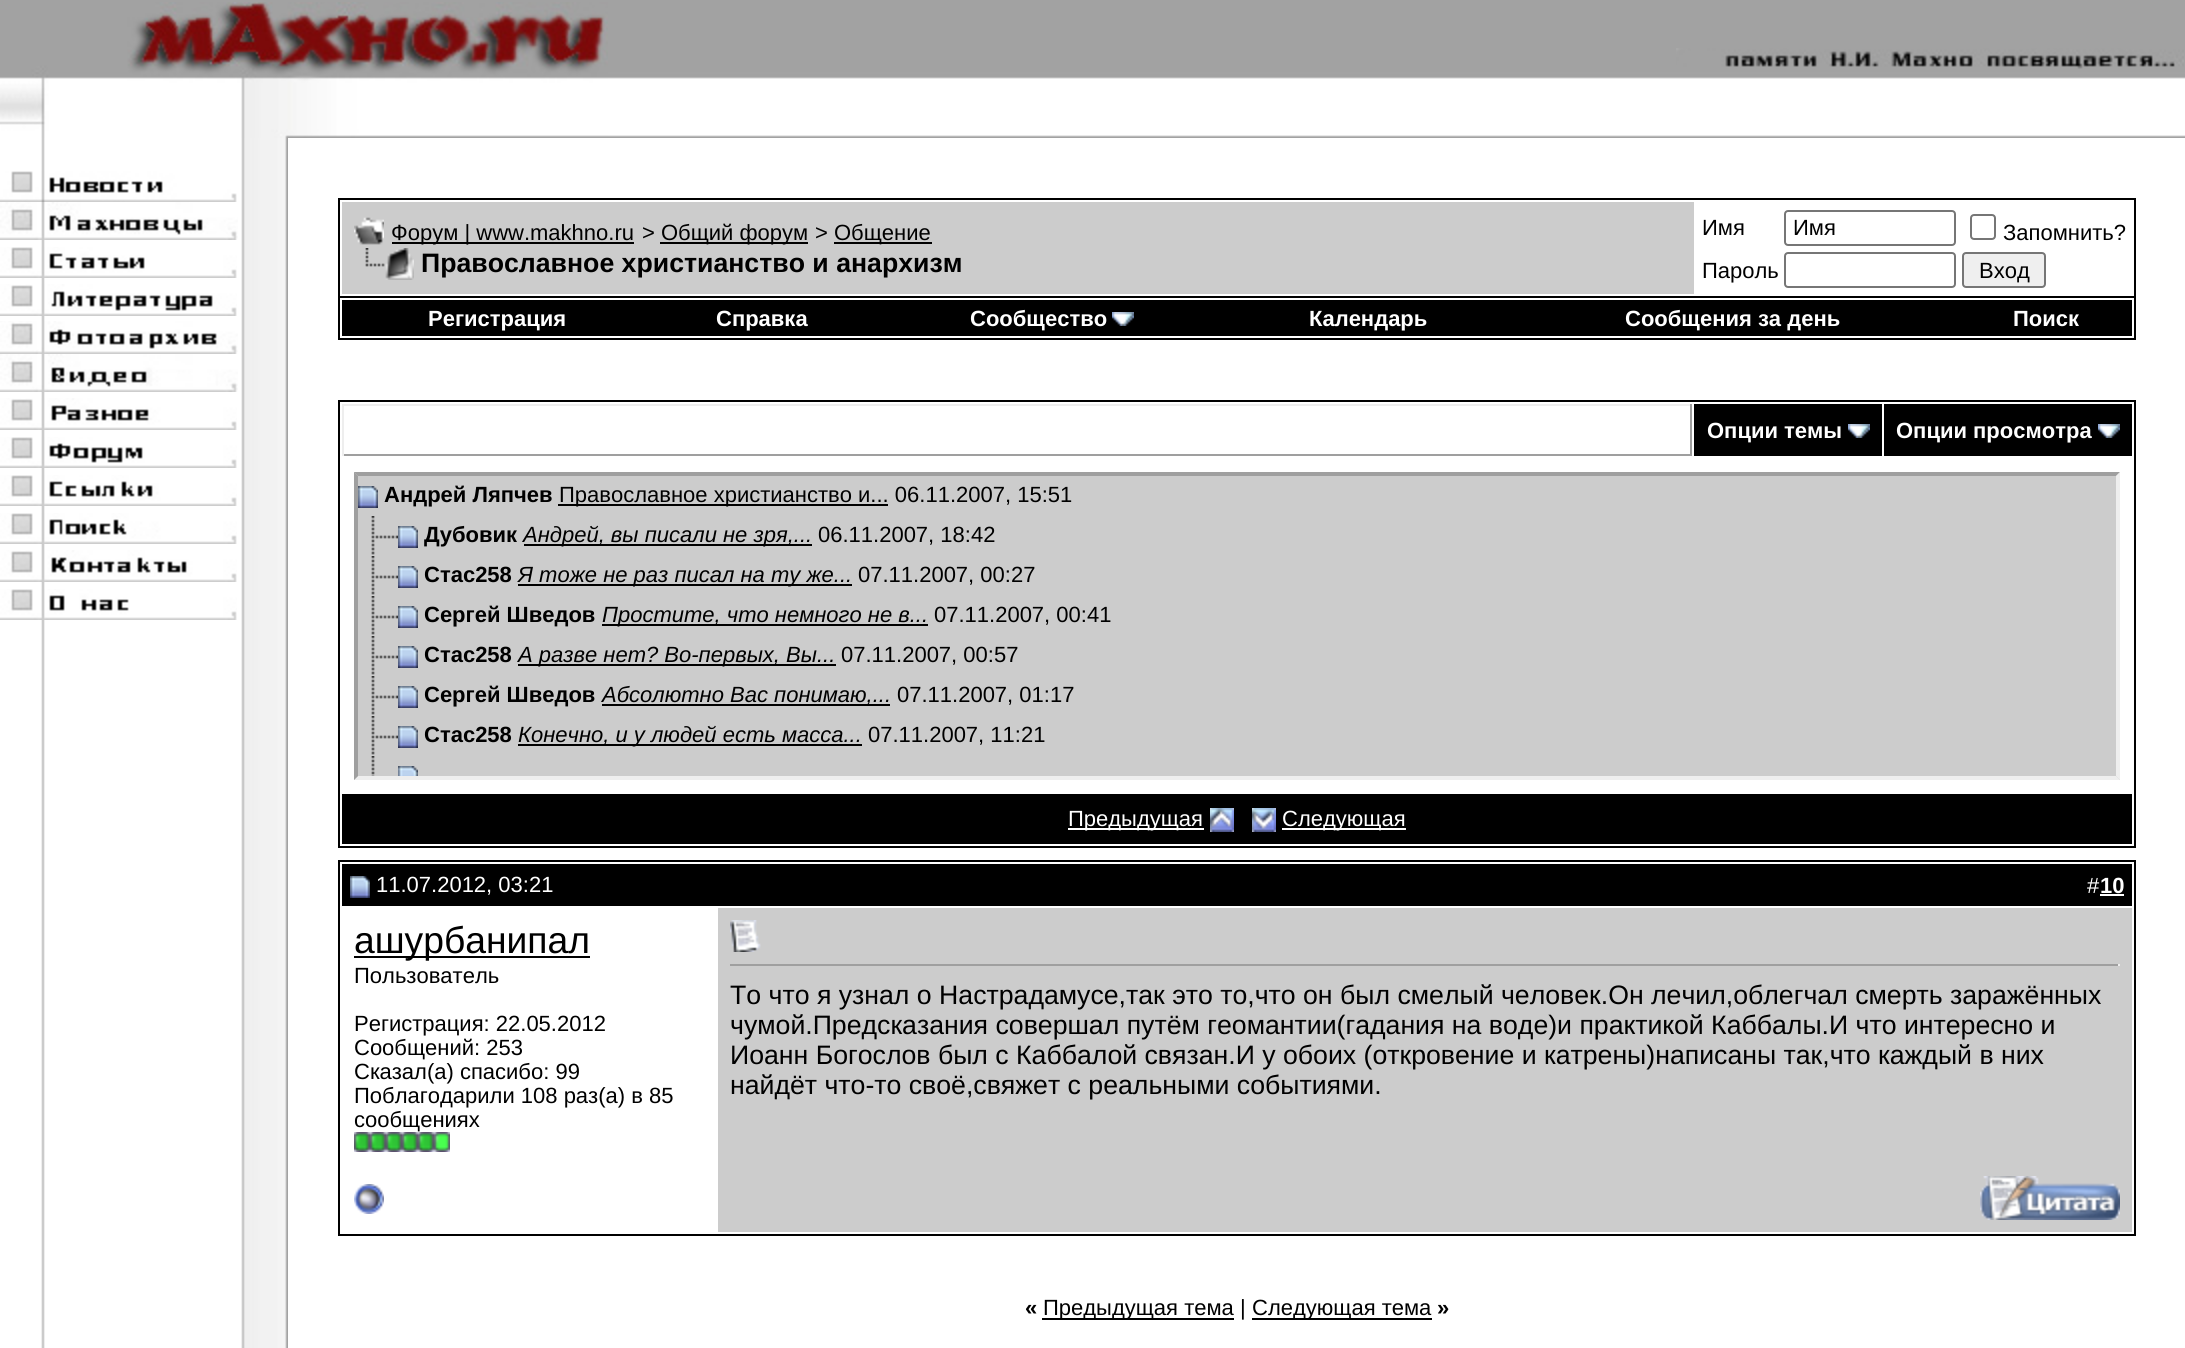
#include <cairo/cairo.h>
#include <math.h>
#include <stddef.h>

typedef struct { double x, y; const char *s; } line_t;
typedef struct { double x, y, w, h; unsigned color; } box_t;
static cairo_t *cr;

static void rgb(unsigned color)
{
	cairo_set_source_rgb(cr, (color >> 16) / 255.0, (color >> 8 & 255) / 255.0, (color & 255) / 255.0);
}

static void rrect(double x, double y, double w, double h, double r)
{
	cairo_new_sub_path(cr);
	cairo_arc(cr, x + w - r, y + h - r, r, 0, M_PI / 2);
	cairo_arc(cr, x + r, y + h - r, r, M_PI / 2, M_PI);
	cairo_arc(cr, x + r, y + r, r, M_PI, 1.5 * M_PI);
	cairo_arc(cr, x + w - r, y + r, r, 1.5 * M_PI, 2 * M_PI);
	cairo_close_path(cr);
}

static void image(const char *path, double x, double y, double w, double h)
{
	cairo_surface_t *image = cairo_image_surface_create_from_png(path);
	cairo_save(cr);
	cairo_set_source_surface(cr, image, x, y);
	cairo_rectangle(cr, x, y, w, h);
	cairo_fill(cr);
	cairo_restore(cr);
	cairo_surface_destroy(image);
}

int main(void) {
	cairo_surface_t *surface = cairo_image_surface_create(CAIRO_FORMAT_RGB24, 2185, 1348);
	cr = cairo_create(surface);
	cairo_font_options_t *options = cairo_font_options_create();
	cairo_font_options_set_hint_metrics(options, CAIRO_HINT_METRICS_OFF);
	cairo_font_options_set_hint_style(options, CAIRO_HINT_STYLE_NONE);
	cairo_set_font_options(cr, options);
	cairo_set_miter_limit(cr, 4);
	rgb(0xffffff);
	cairo_paint(cr);
	image("img/1.png", 0, 0, 2185, 138);
	image("img/2.png", 0, 2, 608, 136);
	image("img/3.png", 1676, 48, 508, 21);
	image("img/4.png", 41, 138, 247, 1210);
	image("img/5.png", 0, 171, 237, 31);
	image("img/6.png", 0, 202, 238, 38);
	image("img/7.png", 0, 247, 237, 31);
	image("img/8.png", 0, 284, 237, 32);
	image("img/9.png", 0, 321, 238, 33);
	image("img/10.png", 0, 354, 238, 38);
	image("img/11.png", 0, 398, 237, 32);
	image("img/12.png", 0, 437, 237, 31);
	image("img/13.png", 0, 475, 237, 31);
	image("img/14.png", 0, 513, 237, 31);
	image("img/15.png", 0, 550, 237, 32);
	image("img/16.png", 0, 589, 237, 31);
	cairo_rectangle(cr, 339, 199, 1796, 98);
	rgb(0x000000);
	cairo_stroke(cr);
	rgb(0xcccccc);
	cairo_rectangle(cr, 342, 202, 1352, 92);
	cairo_fill(cr);
	image("img/17.png", 354, 217, 30, 28);
	{
		static const box_t items[] = {
			{392, 242, 242, 2, 0x000000},
			{660, 242, 148, 2, 0x000000},
			{834, 242, 98, 2, 0x000000},
		};
		for (size_t i = 0; i < sizeof items / sizeof *items; i++) {
			rgb(items[i].color);
			cairo_rectangle(cr, items[i].x, items[i].y, items[i].w, items[i].h);
			cairo_fill(cr);
		}
	}
	image("img/18.png", 365, 248, 49, 32);
	rrect(1785, 211, 170, 34, 3);
	rgb(0x767676);
	cairo_stroke(cr);
	rrect(1971, 215, 24, 24, 3);
	cairo_stroke(cr);
	rrect(1785, 253, 170, 34, 3);
	cairo_stroke(cr);
	rgb(0xefefef);
	rrect(1963, 253, 82, 34, 3);
	cairo_fill_preserve(cr);
	rgb(0x767676);
	cairo_stroke(cr);
	{
		static const box_t items[] = {
			{2134, 298, 2, 42, 0x000000},
			{338, 338, 1798, 2, 0x000000},
			{338, 298, 2, 42, 0x000000},
			{342, 300, 1790, 36, 0x000000},
		};
		for (size_t i = 0; i < sizeof items / sizeof *items; i++) {
			rgb(items[i].color);
			cairo_rectangle(cr, items[i].x, items[i].y, items[i].w, items[i].h);
			cairo_fill(cr);
		}
	}
	image("img/19.png", 1112, 312, 22, 14);
	{
		static const box_t items[] = {
			{338, 400, 1798, 2, 0x000000},
			{2134, 400, 2, 448, 0x000000},
			{338, 400, 2, 58, 0x000000},
			{342, 404, 1350, 2, 0xeeeeee},
			{1690, 404, 2, 52, 0x9f9f9f},
			{342, 454, 1350, 2, 0x9f9f9f},
			{342, 404, 2, 52, 0xeeeeee},
			{1694, 404, 188, 52, 0x000000},
		};
		for (size_t i = 0; i < sizeof items / sizeof *items; i++) {
			rgb(items[i].color);
			cairo_rectangle(cr, items[i].x, items[i].y, items[i].w, items[i].h);
			cairo_fill(cr);
		}
	}
	image("img/19.png", 1848, 424, 22, 14);
	cairo_rectangle(cr, 1884, 404, 248, 52);
	cairo_fill(cr);
	image("img/19.png", 2098, 424, 22, 14);
	{
		static const box_t items[] = {
			{338, 846, 1798, 2, 0x000000},
			{338, 458, 2, 390, 0x000000},
			{354, 472, 1766, 308, 0xcccccc},
		};
		for (size_t i = 0; i < sizeof items / sizeof *items; i++) {
			rgb(items[i].color);
			cairo_rectangle(cr, items[i].x, items[i].y, items[i].w, items[i].h);
			cairo_fill(cr);
		}
	}
	rgb(0x9f9f9f);
	cairo_new_path(cr);
	cairo_move_to(cr, 354, 472);
	cairo_line_to(cr, 2120, 472);
	cairo_line_to(cr, 2116, 476);
	cairo_line_to(cr, 358, 476);
	cairo_close_path(cr);
	cairo_fill(cr);
	rgb(0xeeeeee);
	cairo_new_path(cr);
	cairo_move_to(cr, 2120, 472);
	cairo_line_to(cr, 2120, 780);
	cairo_line_to(cr, 2116, 776);
	cairo_line_to(cr, 2116, 476);
	cairo_close_path(cr);
	cairo_fill(cr);
	cairo_new_path(cr);
	cairo_move_to(cr, 2120, 780);
	cairo_line_to(cr, 354, 780);
	cairo_line_to(cr, 358, 776);
	cairo_line_to(cr, 2116, 776);
	cairo_close_path(cr);
	cairo_fill(cr);
	rgb(0x9f9f9f);
	cairo_new_path(cr);
	cairo_move_to(cr, 354, 780);
	cairo_line_to(cr, 354, 472);
	cairo_line_to(cr, 358, 476);
	cairo_line_to(cr, 358, 776);
	cairo_close_path(cr);
	cairo_fill(cr);
	image("img/20.png", 358, 486, 20, 22);
	rgb(0x000000);
	cairo_rectangle(cr, 558, 504, 330, 2);
	cairo_fill(cr);
	image("img/21.png", 371, 516, 27, 39);
	image("img/20.png", 398, 526, 20, 22);
	cairo_rectangle(cr, 524, 544, 288, 2);
	cairo_fill(cr);
	image("img/21.png", 371, 556, 27, 39);
	image("img/20.png", 398, 566, 20, 22);
	cairo_rectangle(cr, 518, 584, 334, 2);
	cairo_fill(cr);
	image("img/21.png", 371, 596, 27, 39);
	image("img/20.png", 398, 606, 20, 22);
	cairo_rectangle(cr, 602, 624, 326, 2);
	cairo_fill(cr);
	image("img/21.png", 371, 636, 27, 39);
	image("img/20.png", 398, 646, 20, 22);
	cairo_rectangle(cr, 518, 664, 318, 2);
	cairo_fill(cr);
	image("img/21.png", 371, 676, 27, 39);
	image("img/20.png", 398, 686, 20, 22);
	cairo_rectangle(cr, 602, 704, 288, 2);
	cairo_fill(cr);
	image("img/21.png", 371, 716, 27, 39);
	image("img/20.png", 398, 726, 20, 22);
	cairo_rectangle(cr, 518, 744, 344, 2);
	cairo_fill(cr);
	image("img/22.png", 371, 756, 4, 20);
	image("img/23.png", 398, 766, 20, 10);
	cairo_rectangle(cr, 342, 794, 1790, 50);
	cairo_fill(cr);
	rgb(0xffffff);
	cairo_rectangle(cr, 1068, 828, 136, 2);
	cairo_fill(cr);
	image("img/24.png", 1210, 808, 24, 24);
	image("img/25.png", 1252, 808, 24, 24);
	cairo_rectangle(cr, 1282, 828, 124, 2);
	cairo_fill(cr);
	cairo_rectangle(cr, 339, 861, 1796, 374);
	rgb(0x000000);
	cairo_stroke(cr);
	cairo_rectangle(cr, 342, 864, 1790, 42);
	cairo_fill(cr);
	image("img/26.png", 350, 876, 20, 22);
	rgb(0xffffff);
	cairo_rectangle(cr, 2100, 894, 24, 2);
	cairo_fill(cr);
	rgb(0x000000);
	cairo_rectangle(cr, 354, 956, 236, 2);
	cairo_fill(cr);
	image("img/27.png", 354, 1132, 16, 20);
	image("img/27.png", 370, 1132, 16, 20);
	image("img/27.png", 386, 1132, 16, 20);
	image("img/27.png", 402, 1132, 16, 20);
	image("img/27.png", 418, 1132, 16, 20);
	image("img/28.png", 434, 1132, 16, 20);
	rgb(0xcccccc);
	cairo_rectangle(cr, 718, 908, 1414, 324);
	cairo_fill(cr);
	image("img/29.png", 730, 920, 31, 32);
	rgb(0x9f9f9f);
	cairo_rectangle(cr, 730, 964, 1390, 2);
	cairo_fill(cr);
	rgb(0xeeeeee);
	cairo_rectangle(cr, 2118, 964, 2, 2);
	cairo_fill(cr);
	image("img/30.png", 354, 1184, 30, 30);
	image("img/31.png", 1980, 1176, 140, 44);
	rgb(0x000000);
	cairo_rectangle(cr, 1042, 1318, 192, 2);
	cairo_fill(cr);
	cairo_rectangle(cr, 1252, 1318, 180, 2);
	cairo_fill(cr);
	cairo_select_font_face(cr, "Liberation Sans", CAIRO_FONT_SLANT_NORMAL, CAIRO_FONT_WEIGHT_NORMAL);
	cairo_set_font_size(cr, 22);
	{
		static const line_t items[] = {
			{391, 240, "Форум | www.makhno.ru"},
			{642, 240, ">"},
			{661, 240, "Общий форум"},
			{815, 240, ">"},
			{834, 240, "Общение"},
		};
		for (size_t i = 0; i < sizeof items / sizeof *items; i++) {
			cairo_move_to(cr, items[i].x, items[i].y);
			cairo_show_text(cr, items[i].s);
		}
	}
	cairo_select_font_face(cr, "Liberation Sans", CAIRO_FONT_SLANT_NORMAL, CAIRO_FONT_WEIGHT_BOLD);
	cairo_set_font_size(cr, 26.67);
	cairo_move_to(cr, 421, 272);
	cairo_show_text(cr, "Православное христианство и анархизм");
	cairo_select_font_face(cr, "Liberation Sans", CAIRO_FONT_SLANT_NORMAL, CAIRO_FONT_WEIGHT_NORMAL);
	cairo_set_font_size(cr, 22);
	{
		static const line_t items[] = {
			{1702, 235, "Имя"},
			{1793, 235, "Имя"},
			{2003, 240, "Запомнить?"},
			{1702, 278, "Пароль"},
			{1979, 278, "Вход"},
		};
		for (size_t i = 0; i < sizeof items / sizeof *items; i++) {
			cairo_move_to(cr, items[i].x, items[i].y);
			cairo_show_text(cr, items[i].s);
		}
	}
	cairo_select_font_face(cr, "Liberation Sans", CAIRO_FONT_SLANT_NORMAL, CAIRO_FONT_WEIGHT_BOLD);
	rgb(0xffffff);
	{
		static const line_t items[] = {
			{428, 326, "Регистрация"},
			{716, 326, "Справка"},
			{970, 326, "Сообщество"},
			{1309, 326, "Календарь"},
			{1625, 326, "Сообщения за день"},
			{2013, 326, "Поиск"},
			{1707, 438, "Опции темы"},
			{1896, 438, "Опции просмотра"},
		};
		for (size_t i = 0; i < sizeof items / sizeof *items; i++) {
			cairo_move_to(cr, items[i].x, items[i].y);
			cairo_show_text(cr, items[i].s);
		}
	}
	rgb(0x000000);
	cairo_move_to(cr, 384, 502);
	cairo_show_text(cr, "Андрей Ляпчев");
	cairo_select_font_face(cr, "Liberation Sans", CAIRO_FONT_SLANT_NORMAL, CAIRO_FONT_WEIGHT_NORMAL);
	cairo_move_to(cr, 559, 502);
	cairo_show_text(cr, "Православное христианство и... 06.11.2007, 15:51");
	cairo_select_font_face(cr, "Liberation Sans", CAIRO_FONT_SLANT_NORMAL, CAIRO_FONT_WEIGHT_BOLD);
	cairo_move_to(cr, 424, 542);
	cairo_show_text(cr, "Дубовик");
	cairo_select_font_face(cr, "Liberation Sans", CAIRO_FONT_SLANT_ITALIC, CAIRO_FONT_WEIGHT_NORMAL);
	cairo_move_to(cr, 523, 542);
	cairo_show_text(cr, "Андрей, вы писали не зря,...");
	cairo_select_font_face(cr, "Liberation Sans", CAIRO_FONT_SLANT_NORMAL, CAIRO_FONT_WEIGHT_NORMAL);
	cairo_move_to(cr, 818, 542);
	cairo_show_text(cr, "06.11.2007, 18:42");
	cairo_select_font_face(cr, "Liberation Sans", CAIRO_FONT_SLANT_NORMAL, CAIRO_FONT_WEIGHT_BOLD);
	cairo_move_to(cr, 424, 582);
	cairo_show_text(cr, "Стас258");
	cairo_select_font_face(cr, "Liberation Sans", CAIRO_FONT_SLANT_ITALIC, CAIRO_FONT_WEIGHT_NORMAL);
	cairo_move_to(cr, 518, 582);
	cairo_show_text(cr, "Я тоже не раз писал на ту же...");
	cairo_select_font_face(cr, "Liberation Sans", CAIRO_FONT_SLANT_NORMAL, CAIRO_FONT_WEIGHT_NORMAL);
	cairo_move_to(cr, 858, 582);
	cairo_show_text(cr, "07.11.2007, 00:27");
	cairo_select_font_face(cr, "Liberation Sans", CAIRO_FONT_SLANT_NORMAL, CAIRO_FONT_WEIGHT_BOLD);
	cairo_move_to(cr, 424, 622);
	cairo_show_text(cr, "Сергей Шведов");
	cairo_select_font_face(cr, "Liberation Sans", CAIRO_FONT_SLANT_ITALIC, CAIRO_FONT_WEIGHT_NORMAL);
	cairo_move_to(cr, 602, 622);
	cairo_show_text(cr, "Простите, что немного не в...");
	cairo_select_font_face(cr, "Liberation Sans", CAIRO_FONT_SLANT_NORMAL, CAIRO_FONT_WEIGHT_NORMAL);
	cairo_move_to(cr, 934, 622);
	cairo_show_text(cr, "07.11.2007, 00:41");
	cairo_select_font_face(cr, "Liberation Sans", CAIRO_FONT_SLANT_NORMAL, CAIRO_FONT_WEIGHT_BOLD);
	cairo_move_to(cr, 424, 662);
	cairo_show_text(cr, "Стас258");
	cairo_select_font_face(cr, "Liberation Sans", CAIRO_FONT_SLANT_ITALIC, CAIRO_FONT_WEIGHT_NORMAL);
	cairo_move_to(cr, 518, 662);
	cairo_show_text(cr, "А разве нет? Во-первых, Вы...");
	cairo_select_font_face(cr, "Liberation Sans", CAIRO_FONT_SLANT_NORMAL, CAIRO_FONT_WEIGHT_NORMAL);
	cairo_move_to(cr, 841, 662);
	cairo_show_text(cr, "07.11.2007, 00:57");
	cairo_select_font_face(cr, "Liberation Sans", CAIRO_FONT_SLANT_NORMAL, CAIRO_FONT_WEIGHT_BOLD);
	cairo_move_to(cr, 424, 702);
	cairo_show_text(cr, "Сергей Шведов");
	cairo_select_font_face(cr, "Liberation Sans", CAIRO_FONT_SLANT_ITALIC, CAIRO_FONT_WEIGHT_NORMAL);
	cairo_move_to(cr, 602, 702);
	cairo_show_text(cr, "Абсолютно Вас понимаю,...");
	cairo_select_font_face(cr, "Liberation Sans", CAIRO_FONT_SLANT_NORMAL, CAIRO_FONT_WEIGHT_NORMAL);
	cairo_move_to(cr, 897, 702);
	cairo_show_text(cr, "07.11.2007, 01:17");
	cairo_select_font_face(cr, "Liberation Sans", CAIRO_FONT_SLANT_NORMAL, CAIRO_FONT_WEIGHT_BOLD);
	cairo_move_to(cr, 424, 742);
	cairo_show_text(cr, "Стас258");
	cairo_select_font_face(cr, "Liberation Sans", CAIRO_FONT_SLANT_ITALIC, CAIRO_FONT_WEIGHT_NORMAL);
	cairo_move_to(cr, 518, 742);
	cairo_show_text(cr, "Конечно, и у людей есть масса...");
	cairo_select_font_face(cr, "Liberation Sans", CAIRO_FONT_SLANT_NORMAL, CAIRO_FONT_WEIGHT_NORMAL);
	cairo_move_to(cr, 868, 742);
	cairo_show_text(cr, "07.11.2007, 11:21");
	rgb(0xffffff);
	{
		static const line_t items[] = {
			{1068, 826, "Предыдущая"},
			{1282, 826, "Следующая"},
			{376, 892, "11.07.2012, 03:21"},
			{2087, 893, "#"},
		};
		for (size_t i = 0; i < sizeof items / sizeof *items; i++) {
			cairo_move_to(cr, items[i].x, items[i].y);
			cairo_show_text(cr, items[i].s);
		}
	}
	cairo_select_font_face(cr, "Liberation Sans", CAIRO_FONT_SLANT_NORMAL, CAIRO_FONT_WEIGHT_BOLD);
	cairo_move_to(cr, 2100, 893);
	cairo_show_text(cr, "10");
	cairo_select_font_face(cr, "Liberation Sans", CAIRO_FONT_SLANT_NORMAL, CAIRO_FONT_WEIGHT_NORMAL);
	cairo_set_font_size(cr, 37.25);
	rgb(0x000000);
	cairo_move_to(cr, 354, 953);
	cairo_show_text(cr, "ашурбанипал");
	cairo_set_font_size(cr, 22);
	{
		static const line_t items[] = {
			{354, 983, "Пользователь"},
			{354, 1031, "Регистрация: 22.05.2012"},
			{354, 1055, "Сообщений: 253"},
			{354, 1079, "Сказал(а) спасибо: 99"},
			{354, 1103, "Поблагодарили 108 раз(а) в 85"},
			{354, 1127, "сообщениях"},
		};
		for (size_t i = 0; i < sizeof items / sizeof *items; i++) {
			cairo_move_to(cr, items[i].x, items[i].y);
			cairo_show_text(cr, items[i].s);
		}
	}
	cairo_set_font_size(cr, 26.67);
	{
		static const line_t items[] = {
			{730, 1004, "То что я узнал о Настрадамусе,так это то,что он был смелый человек.Он лечил,облегчал смерть заражённых"},
			{730, 1034, "чумой.Предсказания совершал путём геомантии(гадания на воде)и практикой Каббалы.И что интересно и"},
			{730, 1064, "Иоанн Богослов был с Каббалой связан.И у обоих (откровение и катрены)написаны так,что каждый в них"},
			{730, 1094, "найдёт что-то своё,свяжет с реальными событиями."},
		};
		for (size_t i = 0; i < sizeof items / sizeof *items; i++) {
			cairo_move_to(cr, items[i].x, items[i].y);
			cairo_show_text(cr, items[i].s);
		}
	}
	cairo_select_font_face(cr, "Liberation Sans", CAIRO_FONT_SLANT_NORMAL, CAIRO_FONT_WEIGHT_BOLD);
	cairo_set_font_size(cr, 22);
	cairo_move_to(cr, 1025, 1315);
	cairo_show_text(cr, "«");
	cairo_select_font_face(cr, "Liberation Sans", CAIRO_FONT_SLANT_NORMAL, CAIRO_FONT_WEIGHT_NORMAL);
	cairo_move_to(cr, 1043, 1315);
	cairo_show_text(cr, "Предыдущая тема |");
	cairo_move_to(cr, 1252, 1315);
	cairo_show_text(cr, "Следующая тема");
	cairo_select_font_face(cr, "Liberation Sans", CAIRO_FONT_SLANT_NORMAL, CAIRO_FONT_WEIGHT_BOLD);
	cairo_move_to(cr, 1437, 1315);
	cairo_show_text(cr, "»");
	cairo_surface_write_to_png(surface, "page.png");
	cairo_font_options_destroy(options);
	cairo_destroy(cr);
	cairo_surface_destroy(surface);
	return 0;
}
